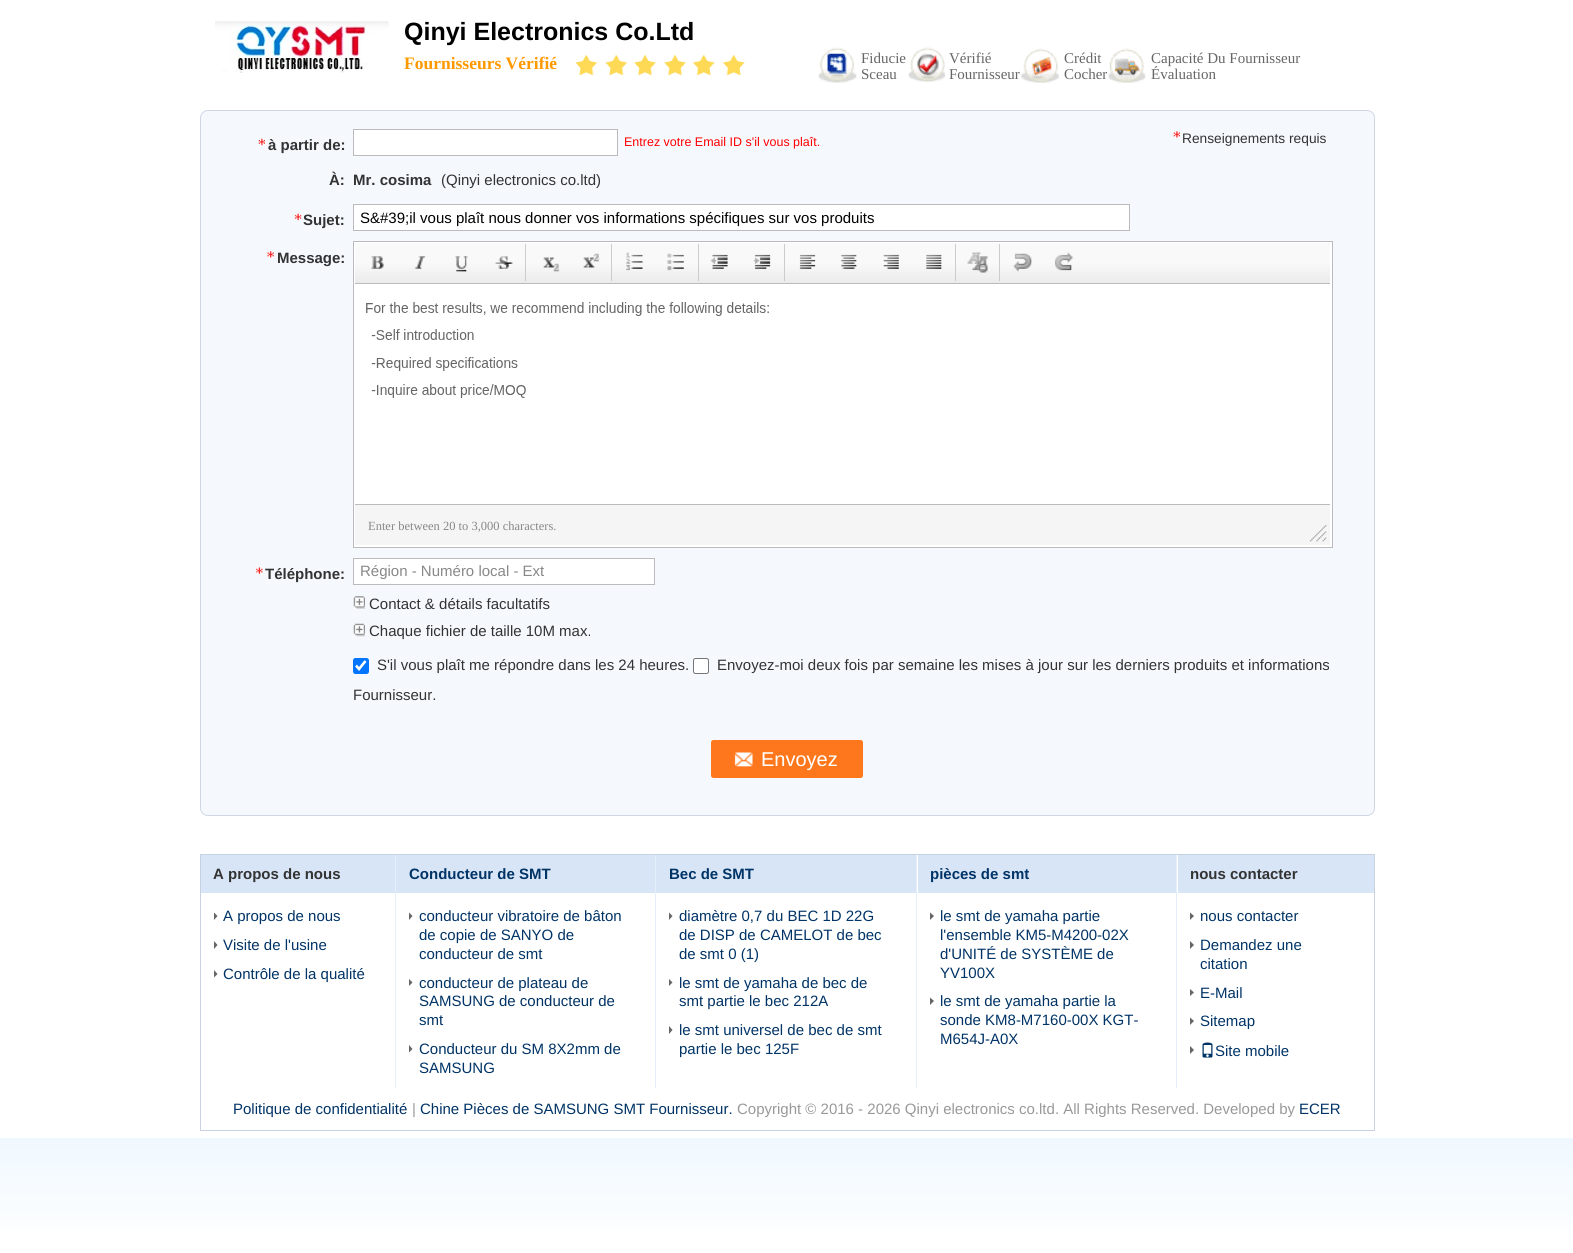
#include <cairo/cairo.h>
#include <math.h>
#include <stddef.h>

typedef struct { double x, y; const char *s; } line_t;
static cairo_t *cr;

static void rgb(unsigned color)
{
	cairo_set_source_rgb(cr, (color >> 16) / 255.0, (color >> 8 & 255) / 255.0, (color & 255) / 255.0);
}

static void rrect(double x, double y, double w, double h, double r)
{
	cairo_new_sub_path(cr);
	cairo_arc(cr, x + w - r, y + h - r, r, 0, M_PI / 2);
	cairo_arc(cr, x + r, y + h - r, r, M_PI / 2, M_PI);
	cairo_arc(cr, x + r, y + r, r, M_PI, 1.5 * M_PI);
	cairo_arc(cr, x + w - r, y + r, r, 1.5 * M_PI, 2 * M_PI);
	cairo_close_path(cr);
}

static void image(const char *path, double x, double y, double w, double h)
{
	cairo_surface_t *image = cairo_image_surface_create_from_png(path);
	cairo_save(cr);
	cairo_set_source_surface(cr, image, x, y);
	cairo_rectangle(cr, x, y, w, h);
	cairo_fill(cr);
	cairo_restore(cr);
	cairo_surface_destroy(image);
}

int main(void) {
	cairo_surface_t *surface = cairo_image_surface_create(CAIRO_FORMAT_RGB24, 1573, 1253);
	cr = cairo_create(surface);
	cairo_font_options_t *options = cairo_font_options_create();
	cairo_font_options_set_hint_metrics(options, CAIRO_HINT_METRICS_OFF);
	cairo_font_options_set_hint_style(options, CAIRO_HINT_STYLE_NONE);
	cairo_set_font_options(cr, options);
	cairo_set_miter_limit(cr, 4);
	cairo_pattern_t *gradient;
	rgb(0xffffff);
	cairo_paint(cr);
	gradient = cairo_pattern_create_linear(787, 1138, 787, 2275);
	cairo_pattern_add_color_stop_rgba(gradient, 0, 0.941, 0.973, 1, 1);
	cairo_pattern_add_color_stop_rgba(gradient, 0.1, 1, 1, 1, 1);
	cairo_pattern_add_color_stop_rgba(gradient, 1, 1, 1, 1, 1);
	cairo_set_source(cr, gradient);
	cairo_pattern_destroy(gradient);
	cairo_rectangle(cr, 0, 1138, 1573, 95);
	cairo_fill(cr);
	image("img/1.png", 215, 21, 174, 52);
	image("img/2.png", 575, 55, 23, 21);
	image("img/2.png", 605, 55, 23, 21);
	image("img/3.png", 634, 55, 22, 21);
	image("img/3.png", 664, 55, 22, 21);
	image("img/4.png", 693, 55, 22, 21);
	image("img/5.png", 723, 55, 22, 21);
	image("img/6.png", 818, 47, 39, 36);
	image("img/7.png", 908, 47, 38, 36);
	rgb(0xf5f8fd);
	rrect(200.5, 110.5, 1174, 705, 7.5);
	cairo_fill_preserve(cr);
	rgb(0xcfd7e4);
	cairo_set_line_width(cr, 1);
	cairo_stroke(cr);
	image("img/10.png", 258, 138, 7, 8);
	rgb(0xffffff);
	cairo_rectangle(cr, 353.5, 129.5, 264, 26);
	cairo_fill_preserve(cr);
	rgb(0xbbbbbb);
	cairo_stroke(cr);
	image("img/11.png", 1173, 131, 7, 7);
	image("img/12.png", 294, 213, 8, 8);
	rgb(0xffffff);
	cairo_rectangle(cr, 353.5, 204.5, 776, 26);
	cairo_fill_preserve(cr);
	rgb(0xbbbbbb);
	cairo_stroke(cr);
	image("img/13.png", 267, 251, 7, 7);
	rgb(0xffffff);
	cairo_rectangle(cr, 353.5, 241.5, 979, 306);
	cairo_fill_preserve(cr);
	rgb(0xbbbbbb);
	cairo_stroke(cr);
	gradient = cairo_pattern_create_linear(843, 242, 843, 283);
	cairo_pattern_add_color_stop_rgba(gradient, 0.5, 0.976, 0.976, 0.976, 1);
	cairo_pattern_add_color_stop_rgba(gradient, 1, 0.922, 0.922, 0.922, 1);
	cairo_set_source(cr, gradient);
	cairo_pattern_destroy(gradient);
	cairo_rectangle(cr, 355, 243, 975, 40);
	cairo_fill(cr);
	rgb(0xbbbbbb);
	cairo_rectangle(cr, 355, 283, 975, 1);
	cairo_fill(cr);
	image("img/14.png", 371, 256, 13, 13);
	image("img/15.png", 414, 256, 12, 13);
	image("img/16.png", 455, 256, 13, 16);
	image("img/17.png", 495, 256, 18, 13);
	rgb(0xcccccc);
	cairo_rectangle(cr, 525, 244, 1, 37);
	cairo_fill(cr);
	image("img/18.png", 543, 257, 17, 15);
	image("img/19.png", 583, 253, 17, 15);
	cairo_rectangle(cr, 611, 244, 1, 37);
	cairo_fill(cr);
	image("img/20.png", 626, 252, 17, 19);
	image("img/21.png", 667, 253, 17, 18);
	cairo_rectangle(cr, 698, 244, 1, 37);
	cairo_fill(cr);
	image("img/22.png", 710, 254, 18, 15);
	image("img/23.png", 753, 254, 18, 15);
	cairo_rectangle(cr, 784, 244, 1, 37);
	cairo_fill(cr);
	image("img/24.png", 799, 254, 17, 15);
	image("img/25.png", 841, 254, 16, 15);
	image("img/26.png", 883, 254, 16, 15);
	image("img/27.png", 926, 254, 16, 15);
	cairo_rectangle(cr, 955, 244, 1, 37);
	cairo_fill(cr);
	image("img/28.png", 967, 252, 21, 21);
	cairo_rectangle(cr, 999, 244, 1, 37);
	cairo_fill(cr);
	image("img/29.png", 1013, 253, 19, 19);
	image("img/30.png", 1054, 252, 19, 19);
	image("img/31.png", 366, 302, 403, 96);
	rgb(0xf5f5f5);
	cairo_rectangle(cr, 355, 505, 975, 40);
	cairo_fill(cr);
	rgb(0xbbbbbb);
	cairo_rectangle(cr, 355, 504, 975, 1);
	cairo_fill(cr);
	image("img/32.png", 1310, 524, 17, 18);
	image("img/33.png", 256, 567, 7, 7);
	rgb(0xffffff);
	cairo_rectangle(cr, 353.5, 558.5, 301, 26);
	cairo_fill_preserve(cr);
	rgb(0xbbbbbb);
	cairo_stroke(cr);
	image("img/34.png", 353, 596, 12, 13);
	image("img/35.png", 353, 623, 12, 14);
	rgb(0xffffff);
	rrect(693.5, 658.5, 15, 15, 2);
	cairo_fill_preserve(cr);
	rgb(0x767676);
	cairo_stroke(cr);
	rgb(0x0075ff);
	rrect(353, 658, 16, 16, 2.5);
	cairo_fill(cr);
	cairo_new_path(cr);
	cairo_move_to(cr, 356, 665.5);
	cairo_line_to(cr, 359, 669);
	cairo_line_to(cr, 365.5, 661);
	rgb(0xffffff);
	cairo_set_line_width(cr, 2.6);
	cairo_stroke(cr);
	rgb(0xff771c);
	rrect(711, 740, 152, 38, 2.5);
	cairo_fill(cr);
	image("img/36.png", 734, 752, 19, 15);
	cairo_rectangle(cr, 200.5, 854.5, 1174, 276);
	rgb(0xc6d2e0);
	cairo_set_line_width(cr, 1);
	cairo_stroke(cr);
	rgb(0xe4effc);
	cairo_rectangle(cr, 395, 855, 1, 233);
	cairo_fill(cr);
	rgb(0xd8e5f6);
	cairo_rectangle(cr, 201, 855, 194, 38);
	cairo_fill(cr);
	rgb(0x666666);
	cairo_new_path(cr);
	cairo_move_to(cr, 214, 920);
	cairo_line_to(cr, 214, 912.5);
	cairo_line_to(cr, 217.5, 916);
	cairo_close_path(cr);
	cairo_fill(cr);
	cairo_new_path(cr);
	cairo_move_to(cr, 214, 949);
	cairo_line_to(cr, 214, 941);
	cairo_line_to(cr, 217.5, 945);
	cairo_close_path(cr);
	cairo_fill(cr);
	cairo_new_path(cr);
	cairo_move_to(cr, 214, 977.5);
	cairo_line_to(cr, 214, 970);
	cairo_line_to(cr, 217.5, 974);
	cairo_close_path(cr);
	cairo_fill(cr);
	rgb(0xe4effc);
	cairo_rectangle(cr, 655, 855, 1, 233);
	cairo_fill(cr);
	rgb(0xd8e5f6);
	cairo_rectangle(cr, 396, 855, 259, 38);
	cairo_fill(cr);
	rgb(0x666666);
	cairo_new_path(cr);
	cairo_move_to(cr, 409, 920);
	cairo_line_to(cr, 409, 912.5);
	cairo_line_to(cr, 412.5, 916);
	cairo_close_path(cr);
	cairo_fill(cr);
	cairo_new_path(cr);
	cairo_move_to(cr, 409, 986);
	cairo_line_to(cr, 409, 979);
	cairo_line_to(cr, 412.5, 982.5);
	cairo_close_path(cr);
	cairo_fill(cr);
	cairo_new_path(cr);
	cairo_move_to(cr, 409, 1052.5);
	cairo_line_to(cr, 409, 1045);
	cairo_line_to(cr, 412.5, 1049);
	cairo_close_path(cr);
	cairo_fill(cr);
	rgb(0xe4effc);
	cairo_rectangle(cr, 916, 855, 1, 233);
	cairo_fill(cr);
	rgb(0xd8e5f6);
	cairo_rectangle(cr, 656, 855, 260, 38);
	cairo_fill(cr);
	rgb(0x666666);
	cairo_new_path(cr);
	cairo_move_to(cr, 669, 920);
	cairo_line_to(cr, 669, 912.5);
	cairo_line_to(cr, 672.5, 916);
	cairo_close_path(cr);
	cairo_fill(cr);
	cairo_new_path(cr);
	cairo_move_to(cr, 669, 986);
	cairo_line_to(cr, 669, 979);
	cairo_line_to(cr, 672.5, 982.5);
	cairo_close_path(cr);
	cairo_fill(cr);
	cairo_new_path(cr);
	cairo_move_to(cr, 669, 1034);
	cairo_line_to(cr, 669, 1026);
	cairo_line_to(cr, 672.5, 1030);
	cairo_close_path(cr);
	cairo_fill(cr);
	rgb(0xe4effc);
	cairo_rectangle(cr, 1176, 855, 1, 233);
	cairo_fill(cr);
	rgb(0xd8e5f6);
	cairo_rectangle(cr, 918, 855, 258, 38);
	cairo_fill(cr);
	rgb(0x666666);
	cairo_new_path(cr);
	cairo_move_to(cr, 930, 920);
	cairo_line_to(cr, 930, 912.5);
	cairo_line_to(cr, 934, 916);
	cairo_close_path(cr);
	cairo_fill(cr);
	cairo_new_path(cr);
	cairo_move_to(cr, 930, 1005);
	cairo_line_to(cr, 930, 997.5);
	cairo_line_to(cr, 934, 1001);
	cairo_close_path(cr);
	cairo_fill(cr);
	rgb(0xd8e5f6);
	cairo_rectangle(cr, 1178, 855, 196, 38);
	cairo_fill(cr);
	rgb(0x666666);
	cairo_new_path(cr);
	cairo_move_to(cr, 1190, 920);
	cairo_line_to(cr, 1190, 912.5);
	cairo_line_to(cr, 1194, 916);
	cairo_close_path(cr);
	cairo_fill(cr);
	cairo_new_path(cr);
	cairo_move_to(cr, 1190, 949);
	cairo_line_to(cr, 1190, 941);
	cairo_line_to(cr, 1194, 945);
	cairo_close_path(cr);
	cairo_fill(cr);
	cairo_new_path(cr);
	cairo_move_to(cr, 1190, 996);
	cairo_line_to(cr, 1190, 989);
	cairo_line_to(cr, 1194, 992.5);
	cairo_close_path(cr);
	cairo_fill(cr);
	cairo_new_path(cr);
	cairo_move_to(cr, 1190, 1025);
	cairo_line_to(cr, 1190, 1017.5);
	cairo_line_to(cr, 1194, 1021);
	cairo_close_path(cr);
	cairo_fill(cr);
	cairo_new_path(cr);
	cairo_move_to(cr, 1190, 1054);
	cairo_line_to(cr, 1190, 1046);
	cairo_line_to(cr, 1194, 1050);
	cairo_close_path(cr);
	cairo_fill(cr);
	image("img/37.png", 1202, 1042, 11, 16);
	cairo_select_font_face(cr, "Liberation Sans", CAIRO_FONT_SLANT_NORMAL, CAIRO_FONT_WEIGHT_BOLD);
	cairo_set_font_size(cr, 25);
	rgb(0x000000);
	cairo_move_to(cr, 404, 40);
	cairo_show_text(cr, "Qinyi Electronics Co.Ltd");
	cairo_select_font_face(cr, "Liberation Serif", CAIRO_FONT_SLANT_NORMAL, CAIRO_FONT_WEIGHT_BOLD);
	cairo_set_font_size(cr, 17.5);
	rgb(0xff9900);
	cairo_move_to(cr, 404, 69);
	cairo_show_text(cr, "Fournisseurs Vérifié");
	cairo_select_font_face(cr, "Liberation Serif", CAIRO_FONT_SLANT_NORMAL, CAIRO_FONT_WEIGHT_NORMAL);
	cairo_set_font_size(cr, 15);
	rgb(0x666666);
	{
		static const line_t items[] = {
			{861, 63, "Fiducie"},
			{861, 79, "Sceau"},
			{949, 63, "Vérifié"},
			{949, 79, "Fournisseur"},
		};
		for (size_t i = 0; i < sizeof items / sizeof *items; i++) {
			cairo_move_to(cr, items[i].x, items[i].y);
			cairo_show_text(cr, items[i].s);
		}
	}
	image("img/8.png", 1020, 48, 39, 35);
	cairo_move_to(cr, 1064, 63);
	cairo_show_text(cr, "Crédit");
	cairo_move_to(cr, 1064, 79);
	cairo_show_text(cr, "Cocher");
	image("img/9.png", 1107, 48, 39, 35);
	cairo_move_to(cr, 1151, 63);
	cairo_show_text(cr, "Capacité Du Fournisseur");
	cairo_move_to(cr, 1151, 79);
	cairo_show_text(cr, "Évaluation");
	cairo_select_font_face(cr, "Liberation Sans", CAIRO_FONT_SLANT_NORMAL, CAIRO_FONT_WEIGHT_BOLD);
	rgb(0x333333);
	cairo_move_to(cr, 268, 150);
	cairo_show_text(cr, "à partir de:");
	cairo_select_font_face(cr, "Liberation Sans", CAIRO_FONT_SLANT_NORMAL, CAIRO_FONT_WEIGHT_NORMAL);
	cairo_set_font_size(cr, 12.5);
	rgb(0xff0000);
	cairo_move_to(cr, 624, 146);
	cairo_show_text(cr, "Entrez votre Email ID s'il vous plaît.");
	cairo_set_font_size(cr, 13.75);
	rgb(0x333333);
	cairo_move_to(cr, 1182, 143);
	cairo_show_text(cr, "Renseignements requis");
	cairo_select_font_face(cr, "Liberation Sans", CAIRO_FONT_SLANT_NORMAL, CAIRO_FONT_WEIGHT_BOLD);
	cairo_set_font_size(cr, 15);
	cairo_move_to(cr, 329, 185);
	cairo_show_text(cr, "À:");
	cairo_move_to(cr, 353, 185);
	cairo_show_text(cr, "Mr. cosima");
	cairo_select_font_face(cr, "Liberation Sans", CAIRO_FONT_SLANT_NORMAL, CAIRO_FONT_WEIGHT_NORMAL);
	cairo_move_to(cr, 441, 185);
	cairo_show_text(cr, "(Qinyi electronics co.ltd)");
	cairo_select_font_face(cr, "Liberation Sans", CAIRO_FONT_SLANT_NORMAL, CAIRO_FONT_WEIGHT_BOLD);
	cairo_move_to(cr, 303, 225);
	cairo_show_text(cr, "Sujet:");
	cairo_select_font_face(cr, "Liberation Sans", CAIRO_FONT_SLANT_NORMAL, CAIRO_FONT_WEIGHT_NORMAL);
	rgb(0x000000);
	cairo_move_to(cr, 360, 223);
	cairo_show_text(cr, "S&#39;il vous plaît nous donner vos informations spécifiques sur vos produits");
	cairo_select_font_face(cr, "Liberation Sans", CAIRO_FONT_SLANT_NORMAL, CAIRO_FONT_WEIGHT_BOLD);
	rgb(0x333333);
	cairo_move_to(cr, 277, 263);
	cairo_show_text(cr, "Message:");
	cairo_select_font_face(cr, "Liberation Serif", CAIRO_FONT_SLANT_NORMAL, CAIRO_FONT_WEIGHT_NORMAL);
	cairo_set_font_size(cr, 12.5);
	rgb(0x888888);
	cairo_move_to(cr, 368, 530);
	cairo_show_text(cr, "Enter between 20 to 3,000 characters.");
	cairo_select_font_face(cr, "Liberation Sans", CAIRO_FONT_SLANT_NORMAL, CAIRO_FONT_WEIGHT_BOLD);
	cairo_set_font_size(cr, 15);
	rgb(0x333333);
	cairo_move_to(cr, 265, 579);
	cairo_show_text(cr, "Téléphone:");
	cairo_select_font_face(cr, "Liberation Sans", CAIRO_FONT_SLANT_NORMAL, CAIRO_FONT_WEIGHT_NORMAL);
	rgb(0x888888);
	cairo_move_to(cr, 360, 576);
	cairo_show_text(cr, "Région - Numéro local - Ext");
	rgb(0x333333);
	{
		static const line_t items[] = {
			{369, 609, "Contact & détails facultatifs"},
			{369, 636, "Chaque fichier de taille 10M max."},
			{717, 670, "Envoyez-moi deux fois par semaine les mises à jour sur les derniers produits et informations"},
			{353, 700, "Fournisseur."},
			{377, 670, "S'il vous plaît me répondre dans les 24 heures."},
		};
		for (size_t i = 0; i < sizeof items / sizeof *items; i++) {
			cairo_move_to(cr, items[i].x, items[i].y);
			cairo_show_text(cr, items[i].s);
		}
	}
	cairo_set_font_size(cr, 20);
	rgb(0xffffff);
	cairo_move_to(cr, 761, 766);
	cairo_show_text(cr, "Envoyez");
	cairo_select_font_face(cr, "Liberation Sans", CAIRO_FONT_SLANT_NORMAL, CAIRO_FONT_WEIGHT_BOLD);
	cairo_set_font_size(cr, 15);
	rgb(0x333333);
	cairo_move_to(cr, 213, 879);
	cairo_show_text(cr, "A propos de nous");
	cairo_select_font_face(cr, "Liberation Sans", CAIRO_FONT_SLANT_NORMAL, CAIRO_FONT_WEIGHT_NORMAL);
	rgb(0x003366);
	{
		static const line_t items[] = {
			{223, 921, "A propos de nous"},
			{223, 950, "Visite de l'usine"},
			{223, 979, "Contrôle de la qualité"},
		};
		for (size_t i = 0; i < sizeof items / sizeof *items; i++) {
			cairo_move_to(cr, items[i].x, items[i].y);
			cairo_show_text(cr, items[i].s);
		}
	}
	cairo_select_font_face(cr, "Liberation Sans", CAIRO_FONT_SLANT_NORMAL, CAIRO_FONT_WEIGHT_BOLD);
	cairo_move_to(cr, 409, 879);
	cairo_show_text(cr, "Conducteur de SMT");
	cairo_select_font_face(cr, "Liberation Sans", CAIRO_FONT_SLANT_NORMAL, CAIRO_FONT_WEIGHT_NORMAL);
	{
		static const line_t items[] = {
			{419, 921, "conducteur vibratoire de bâton"},
			{419, 940, "de copie de SANYO de"},
			{419, 959, "conducteur de smt"},
			{419, 988, "conducteur de plateau de"},
			{419, 1006, "SAMSUNG de conducteur de"},
			{419, 1025, "smt"},
			{419, 1054, "Conducteur du SM 8X2mm de"},
			{419, 1073, "SAMSUNG"},
		};
		for (size_t i = 0; i < sizeof items / sizeof *items; i++) {
			cairo_move_to(cr, items[i].x, items[i].y);
			cairo_show_text(cr, items[i].s);
		}
	}
	cairo_select_font_face(cr, "Liberation Sans", CAIRO_FONT_SLANT_NORMAL, CAIRO_FONT_WEIGHT_BOLD);
	cairo_move_to(cr, 669, 879);
	cairo_show_text(cr, "Bec de SMT");
	cairo_select_font_face(cr, "Liberation Sans", CAIRO_FONT_SLANT_NORMAL, CAIRO_FONT_WEIGHT_NORMAL);
	{
		static const line_t items[] = {
			{679, 921, "diamètre 0,7 du BEC 1D 22G"},
			{679, 940, "de DISP de CAMELOT de bec"},
			{679, 959, "de smt 0 (1)"},
			{679, 988, "le smt de yamaha de bec de"},
			{679, 1006, "smt partie le bec 212A"},
			{679, 1035, "le smt universel de bec de smt"},
			{679, 1054, "partie le bec 125F"},
		};
		for (size_t i = 0; i < sizeof items / sizeof *items; i++) {
			cairo_move_to(cr, items[i].x, items[i].y);
			cairo_show_text(cr, items[i].s);
		}
	}
	cairo_select_font_face(cr, "Liberation Sans", CAIRO_FONT_SLANT_NORMAL, CAIRO_FONT_WEIGHT_BOLD);
	cairo_move_to(cr, 930, 879);
	cairo_show_text(cr, "pièces de smt");
	cairo_select_font_face(cr, "Liberation Sans", CAIRO_FONT_SLANT_NORMAL, CAIRO_FONT_WEIGHT_NORMAL);
	{
		static const line_t items[] = {
			{940, 921, "le smt de yamaha partie"},
			{940, 940, "l'ensemble KM5-M4200-02X"},
			{940, 959, "d'UNITÉ de SYSTÈME de"},
			{940, 978, "YV100X"},
			{940, 1006, "le smt de yamaha partie la"},
			{940, 1025, "sonde KM8-M7160-00X KGT-"},
			{940, 1044, "M654J-A0X"},
		};
		for (size_t i = 0; i < sizeof items / sizeof *items; i++) {
			cairo_move_to(cr, items[i].x, items[i].y);
			cairo_show_text(cr, items[i].s);
		}
	}
	cairo_select_font_face(cr, "Liberation Sans", CAIRO_FONT_SLANT_NORMAL, CAIRO_FONT_WEIGHT_BOLD);
	rgb(0x333333);
	cairo_move_to(cr, 1190, 879);
	cairo_show_text(cr, "nous contacter");
	cairo_select_font_face(cr, "Liberation Sans", CAIRO_FONT_SLANT_NORMAL, CAIRO_FONT_WEIGHT_NORMAL);
	rgb(0x003366);
	{
		static const line_t items[] = {
			{1200, 921, "nous contacter"},
			{1200, 950, "Demandez une"},
			{1200, 969, "citation"},
			{1200, 998, "E-Mail"},
			{1200, 1026, "Sitemap"},
			{1215, 1056, "Site mobile"},
			{233, 1114, "Politique de confidentialité"},
		};
		for (size_t i = 0; i < sizeof items / sizeof *items; i++) {
			cairo_move_to(cr, items[i].x, items[i].y);
			cairo_show_text(cr, items[i].s);
		}
	}
	rgb(0x999999);
	cairo_move_to(cr, 412, 1114);
	cairo_show_text(cr, "|");
	rgb(0x003366);
	cairo_move_to(cr, 420, 1114);
	cairo_show_text(cr, "Chine Pièces de SAMSUNG SMT Fournisseur.");
	rgb(0x999999);
	cairo_move_to(cr, 737, 1114);
	cairo_show_text(cr, "Copyright © 2016 - 2026 Qinyi electronics co.ltd. All Rights Reserved. Developed by");
	rgb(0x003366);
	cairo_move_to(cr, 1299, 1114);
	cairo_show_text(cr, "ECER");
	cairo_surface_write_to_png(surface, "page.png");
	cairo_font_options_destroy(options);
	cairo_destroy(cr);
	cairo_surface_destroy(surface);
	return 0;
}
